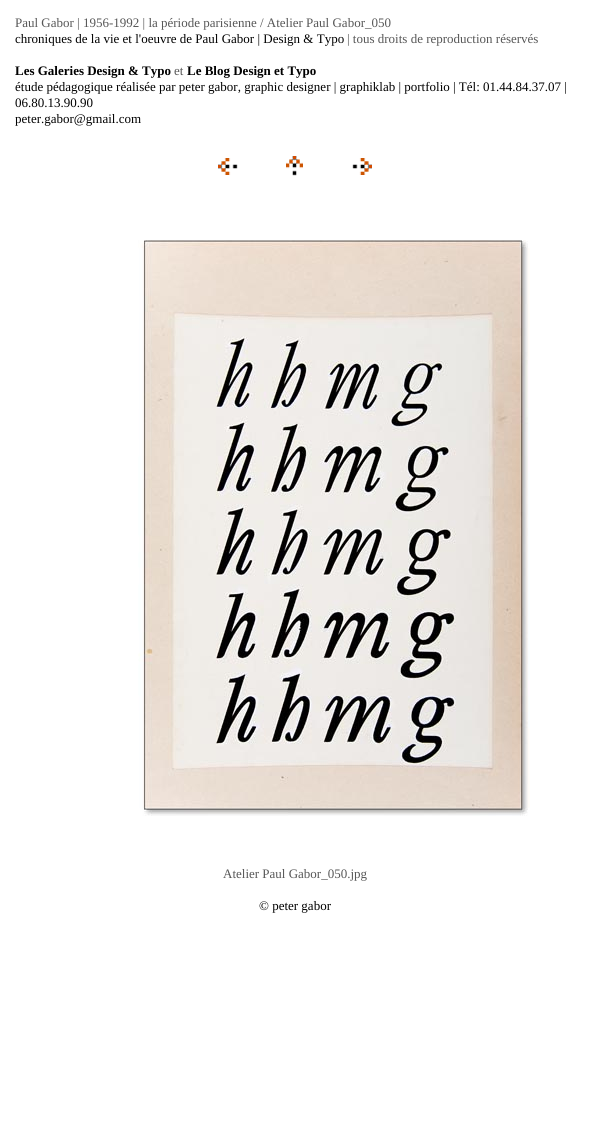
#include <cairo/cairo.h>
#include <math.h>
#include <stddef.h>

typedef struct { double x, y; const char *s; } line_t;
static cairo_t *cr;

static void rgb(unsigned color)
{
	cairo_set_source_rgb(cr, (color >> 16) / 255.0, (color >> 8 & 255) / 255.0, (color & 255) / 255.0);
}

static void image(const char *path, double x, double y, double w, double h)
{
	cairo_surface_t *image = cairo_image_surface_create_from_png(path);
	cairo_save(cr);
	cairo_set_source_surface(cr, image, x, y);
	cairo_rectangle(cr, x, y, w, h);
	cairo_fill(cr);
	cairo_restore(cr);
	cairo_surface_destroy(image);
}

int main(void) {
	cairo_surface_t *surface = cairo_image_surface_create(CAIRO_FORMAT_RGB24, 590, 1129);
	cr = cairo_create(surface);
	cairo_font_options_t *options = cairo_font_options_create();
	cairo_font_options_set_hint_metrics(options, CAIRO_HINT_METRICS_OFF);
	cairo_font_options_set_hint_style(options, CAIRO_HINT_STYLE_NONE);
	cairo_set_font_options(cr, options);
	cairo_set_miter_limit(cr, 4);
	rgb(0xffffff);
	cairo_paint(cr);
	image("img/1.png", 218, 158, 20, 17);
	image("img/2.png", 286, 156, 17, 20);
	image("img/3.png", 352, 158, 20, 17);
	image("img/4.png", 138, 240, 392, 576);
	cairo_select_font_face(cr, "Liberation Serif", CAIRO_FONT_SLANT_NORMAL, CAIRO_FONT_WEIGHT_NORMAL);
	cairo_set_font_size(cr, 13);
	rgb(0x575757);
	cairo_move_to(cr, 15, 27);
	cairo_show_text(cr, "Paul Gabor | 1956-1992 | la période parisienne / Atelier Paul Gabor_050");
	rgb(0x000000);
	cairo_move_to(cr, 15, 43);
	cairo_show_text(cr, "chroniques de la vie et l'oeuvre de Paul Gabor | Design & Typo");
	rgb(0x575757);
	cairo_move_to(cr, 347, 43);
	cairo_show_text(cr, "| tous droits de reproduction réservés");
	cairo_select_font_face(cr, "Liberation Serif", CAIRO_FONT_SLANT_NORMAL, CAIRO_FONT_WEIGHT_BOLD);
	rgb(0x000000);
	cairo_move_to(cr, 15, 75);
	cairo_show_text(cr, "Les Galeries Design & Typo");
	cairo_select_font_face(cr, "Liberation Serif", CAIRO_FONT_SLANT_NORMAL, CAIRO_FONT_WEIGHT_NORMAL);
	rgb(0x575757);
	cairo_move_to(cr, 174, 75);
	cairo_show_text(cr, "et");
	cairo_select_font_face(cr, "Liberation Serif", CAIRO_FONT_SLANT_NORMAL, CAIRO_FONT_WEIGHT_BOLD);
	rgb(0x000000);
	cairo_move_to(cr, 187, 75);
	cairo_show_text(cr, "Le Blog Design et Typo");
	cairo_select_font_face(cr, "Liberation Serif", CAIRO_FONT_SLANT_NORMAL, CAIRO_FONT_WEIGHT_NORMAL);
	{
		static const line_t items[] = {
			{15, 91, "étude pédagogique réalisée par peter gabor, graphic designer | graphiklab | portfolio | Tél: 01.44.84.37.07 |"},
			{15, 107, "06.80.13.90.90"},
			{15, 123, "peter.gabor@gmail.com"},
		};
		for (size_t i = 0; i < sizeof items / sizeof *items; i++) {
			cairo_move_to(cr, items[i].x, items[i].y);
			cairo_show_text(cr, items[i].s);
		}
	}
	rgb(0x575757);
	cairo_move_to(cr, 223, 878);
	cairo_show_text(cr, "Atelier Paul Gabor_050.jpg");
	rgb(0x000000);
	cairo_move_to(cr, 259, 910);
	cairo_show_text(cr, "© peter gabor");
	cairo_surface_write_to_png(surface, "page.png");
	cairo_font_options_destroy(options);
	cairo_destroy(cr);
	cairo_surface_destroy(surface);
	return 0;
}
